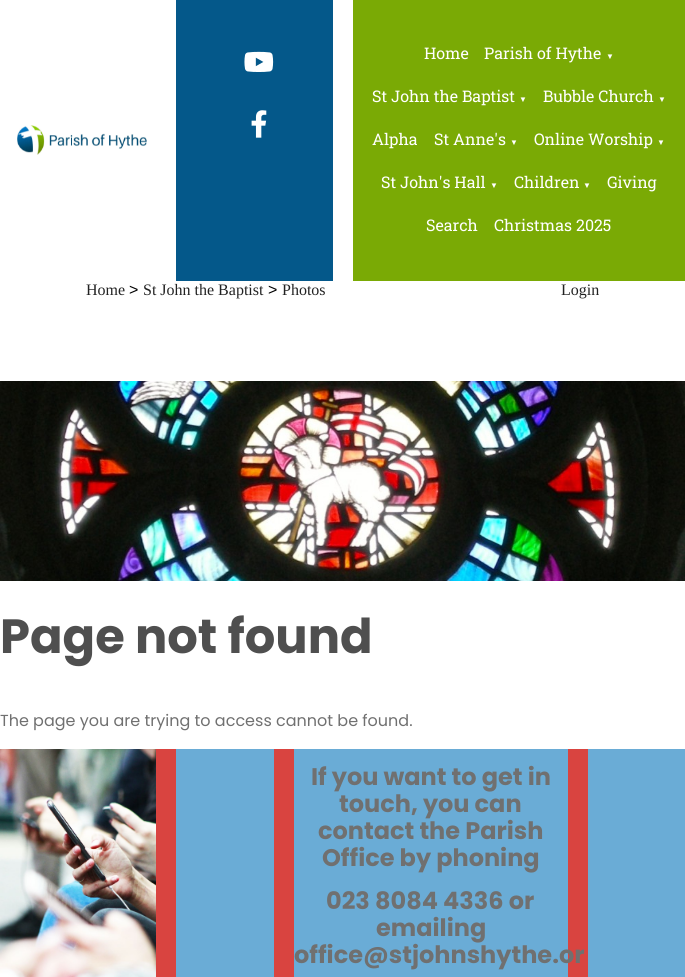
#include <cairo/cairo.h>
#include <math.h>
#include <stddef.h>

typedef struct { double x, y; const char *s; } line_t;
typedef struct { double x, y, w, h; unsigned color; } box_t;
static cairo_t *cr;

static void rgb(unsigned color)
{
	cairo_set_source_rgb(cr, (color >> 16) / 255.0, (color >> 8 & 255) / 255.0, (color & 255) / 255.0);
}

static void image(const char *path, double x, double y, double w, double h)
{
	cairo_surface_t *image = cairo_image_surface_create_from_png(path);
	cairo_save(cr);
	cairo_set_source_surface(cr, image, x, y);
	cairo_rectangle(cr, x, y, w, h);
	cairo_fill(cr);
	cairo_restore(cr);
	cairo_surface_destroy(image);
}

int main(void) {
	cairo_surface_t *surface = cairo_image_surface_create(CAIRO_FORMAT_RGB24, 685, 977);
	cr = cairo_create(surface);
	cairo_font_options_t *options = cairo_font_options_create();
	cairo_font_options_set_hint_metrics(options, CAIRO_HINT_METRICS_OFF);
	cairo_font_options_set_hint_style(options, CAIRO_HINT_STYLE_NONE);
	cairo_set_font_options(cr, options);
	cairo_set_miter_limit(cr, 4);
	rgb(0xffffff);
	cairo_paint(cr);
	image("img/1.png", 17, 125, 130, 30);
	rgb(0x04588a);
	cairo_rectangle(cr, 176, 0, 157, 281);
	cairo_fill(cr);
	image("img/2.png", 244, 51, 30, 21);
	image("img/3.png", 251, 110, 16, 28);
	rgb(0x7aaa05);
	cairo_rectangle(cr, 353, 0, 332, 281);
	cairo_fill(cr);
	image("img/4.png", 0, 381, 685, 200);
	rgb(0xd94440);
	cairo_rectangle(cr, 156, 749, 432, 228);
	cairo_fill(cr);
	image("img/5.png", 0, 749, 156, 228);
	{
		static const box_t items[] = {
			{176, 749, 98, 228, 0x6aacd6},
			{294, 749, 274, 228, 0x6aacd6},
			{588, 749, 97, 228, 0x6aacd6},
		};
		for (size_t i = 0; i < sizeof items / sizeof *items; i++) {
			rgb(items[i].color);
			cairo_rectangle(cr, items[i].x, items[i].y, items[i].w, items[i].h);
			cairo_fill(cr);
		}
	}
	cairo_select_font_face(cr, "Roboto Slab", CAIRO_FONT_SLANT_NORMAL, CAIRO_FONT_WEIGHT_NORMAL);
	cairo_set_font_size(cr, 16);
	rgb(0xffffff);
	cairo_move_to(cr, 424, 59);
	cairo_show_text(cr, "Home");
	cairo_move_to(cr, 484, 59);
	cairo_show_text(cr, "Parish of Hythe");
	cairo_select_font_face(cr, "Liberation Serif", CAIRO_FONT_SLANT_NORMAL, CAIRO_FONT_WEIGHT_NORMAL);
	cairo_set_font_size(cr, 8);
	cairo_move_to(cr, 606, 59);
	cairo_show_text(cr, "▼");
	cairo_select_font_face(cr, "Roboto Slab", CAIRO_FONT_SLANT_NORMAL, CAIRO_FONT_WEIGHT_NORMAL);
	cairo_set_font_size(cr, 16);
	cairo_move_to(cr, 372, 102);
	cairo_show_text(cr, "St John the Baptist");
	cairo_select_font_face(cr, "Liberation Serif", CAIRO_FONT_SLANT_NORMAL, CAIRO_FONT_WEIGHT_NORMAL);
	cairo_set_font_size(cr, 8);
	cairo_move_to(cr, 519, 102);
	cairo_show_text(cr, "▼");
	cairo_select_font_face(cr, "Roboto Slab", CAIRO_FONT_SLANT_NORMAL, CAIRO_FONT_WEIGHT_NORMAL);
	cairo_set_font_size(cr, 16);
	cairo_move_to(cr, 543, 102);
	cairo_show_text(cr, "Bubble Church");
	cairo_select_font_face(cr, "Liberation Serif", CAIRO_FONT_SLANT_NORMAL, CAIRO_FONT_WEIGHT_NORMAL);
	cairo_set_font_size(cr, 8);
	cairo_move_to(cr, 658, 102);
	cairo_show_text(cr, "▼");
	cairo_select_font_face(cr, "Roboto Slab", CAIRO_FONT_SLANT_NORMAL, CAIRO_FONT_WEIGHT_NORMAL);
	cairo_set_font_size(cr, 16);
	cairo_move_to(cr, 372, 145);
	cairo_show_text(cr, "Alpha");
	cairo_move_to(cr, 434, 145);
	cairo_show_text(cr, "St Anne's");
	cairo_select_font_face(cr, "Liberation Serif", CAIRO_FONT_SLANT_NORMAL, CAIRO_FONT_WEIGHT_NORMAL);
	cairo_set_font_size(cr, 8);
	cairo_move_to(cr, 510, 145);
	cairo_show_text(cr, "▼");
	cairo_select_font_face(cr, "Roboto Slab", CAIRO_FONT_SLANT_NORMAL, CAIRO_FONT_WEIGHT_NORMAL);
	cairo_set_font_size(cr, 16);
	cairo_move_to(cr, 534, 145);
	cairo_show_text(cr, "Online Worship");
	cairo_select_font_face(cr, "Liberation Serif", CAIRO_FONT_SLANT_NORMAL, CAIRO_FONT_WEIGHT_NORMAL);
	cairo_set_font_size(cr, 8);
	cairo_move_to(cr, 657, 145);
	cairo_show_text(cr, "▼");
	cairo_select_font_face(cr, "Roboto Slab", CAIRO_FONT_SLANT_NORMAL, CAIRO_FONT_WEIGHT_NORMAL);
	cairo_set_font_size(cr, 16);
	cairo_move_to(cr, 381, 188);
	cairo_show_text(cr, "St John's Hall");
	cairo_select_font_face(cr, "Liberation Serif", CAIRO_FONT_SLANT_NORMAL, CAIRO_FONT_WEIGHT_NORMAL);
	cairo_set_font_size(cr, 8);
	cairo_move_to(cr, 490, 188);
	cairo_show_text(cr, "▼");
	cairo_select_font_face(cr, "Roboto Slab", CAIRO_FONT_SLANT_NORMAL, CAIRO_FONT_WEIGHT_NORMAL);
	cairo_set_font_size(cr, 16);
	cairo_move_to(cr, 514, 188);
	cairo_show_text(cr, "Children");
	cairo_select_font_face(cr, "Liberation Serif", CAIRO_FONT_SLANT_NORMAL, CAIRO_FONT_WEIGHT_NORMAL);
	cairo_set_font_size(cr, 8);
	cairo_move_to(cr, 583, 188);
	cairo_show_text(cr, "▼");
	cairo_select_font_face(cr, "Roboto Slab", CAIRO_FONT_SLANT_NORMAL, CAIRO_FONT_WEIGHT_NORMAL);
	cairo_set_font_size(cr, 16);
	{
		static const line_t items[] = {
			{607, 188, "Giving"},
			{426, 231, "Search"},
			{494, 231, "Christmas 2025"},
		};
		for (size_t i = 0; i < sizeof items / sizeof *items; i++) {
			cairo_move_to(cr, items[i].x, items[i].y);
			cairo_show_text(cr, items[i].s);
		}
	}
	cairo_select_font_face(cr, "Liberation Serif", CAIRO_FONT_SLANT_NORMAL, CAIRO_FONT_WEIGHT_NORMAL);
	rgb(0x222222);
	cairo_move_to(cr, 86, 295);
	cairo_show_text(cr, "Home");
	cairo_select_font_face(cr, "Liberation Sans", CAIRO_FONT_SLANT_NORMAL, CAIRO_FONT_WEIGHT_NORMAL);
	rgb(0x000000);
	cairo_move_to(cr, 129, 295);
	cairo_show_text(cr, ">");
	cairo_select_font_face(cr, "Liberation Serif", CAIRO_FONT_SLANT_NORMAL, CAIRO_FONT_WEIGHT_NORMAL);
	rgb(0x222222);
	cairo_move_to(cr, 143, 295);
	cairo_show_text(cr, "St John the Baptist");
	cairo_select_font_face(cr, "Liberation Sans", CAIRO_FONT_SLANT_NORMAL, CAIRO_FONT_WEIGHT_NORMAL);
	rgb(0x000000);
	cairo_move_to(cr, 268, 295);
	cairo_show_text(cr, ">");
	cairo_select_font_face(cr, "Liberation Serif", CAIRO_FONT_SLANT_NORMAL, CAIRO_FONT_WEIGHT_NORMAL);
	rgb(0x222222);
	cairo_move_to(cr, 282, 295);
	cairo_show_text(cr, "Photos");
	cairo_move_to(cr, 561, 295);
	cairo_show_text(cr, "Login");
	cairo_select_font_face(cr, "Poppins", CAIRO_FONT_SLANT_NORMAL, CAIRO_FONT_WEIGHT_BOLD);
	cairo_set_font_size(cr, 48);
	rgb(0x4f4f4f);
	cairo_move_to(cr, 0, 653);
	cairo_show_text(cr, "Page not found");
	cairo_select_font_face(cr, "Poppins", CAIRO_FONT_SLANT_NORMAL, CAIRO_FONT_WEIGHT_NORMAL);
	cairo_set_font_size(cr, 16);
	rgb(0x707070);
	cairo_move_to(cr, 0, 726);
	cairo_show_text(cr, "The page you are trying to access cannot be found.");
	cairo_select_font_face(cr, "Poppins", CAIRO_FONT_SLANT_NORMAL, CAIRO_FONT_WEIGHT_BOLD);
	cairo_set_font_size(cr, 24);
	{
		static const line_t items[] = {
			{311, 785, "If you want to get in"},
			{339, 812, "touch, you can"},
			{318, 839, "contact the Parish"},
			{322, 866, "Office by phoning"},
			{326, 909, "023 8084 4336 or"},
			{376, 936, "emailing"},
			{294, 963, "office@stjohnshythe.or"},
		};
		for (size_t i = 0; i < sizeof items / sizeof *items; i++) {
			cairo_move_to(cr, items[i].x, items[i].y);
			cairo_show_text(cr, items[i].s);
		}
	}
	cairo_surface_write_to_png(surface, "page.png");
	cairo_font_options_destroy(options);
	cairo_destroy(cr);
	cairo_surface_destroy(surface);
	return 0;
}
